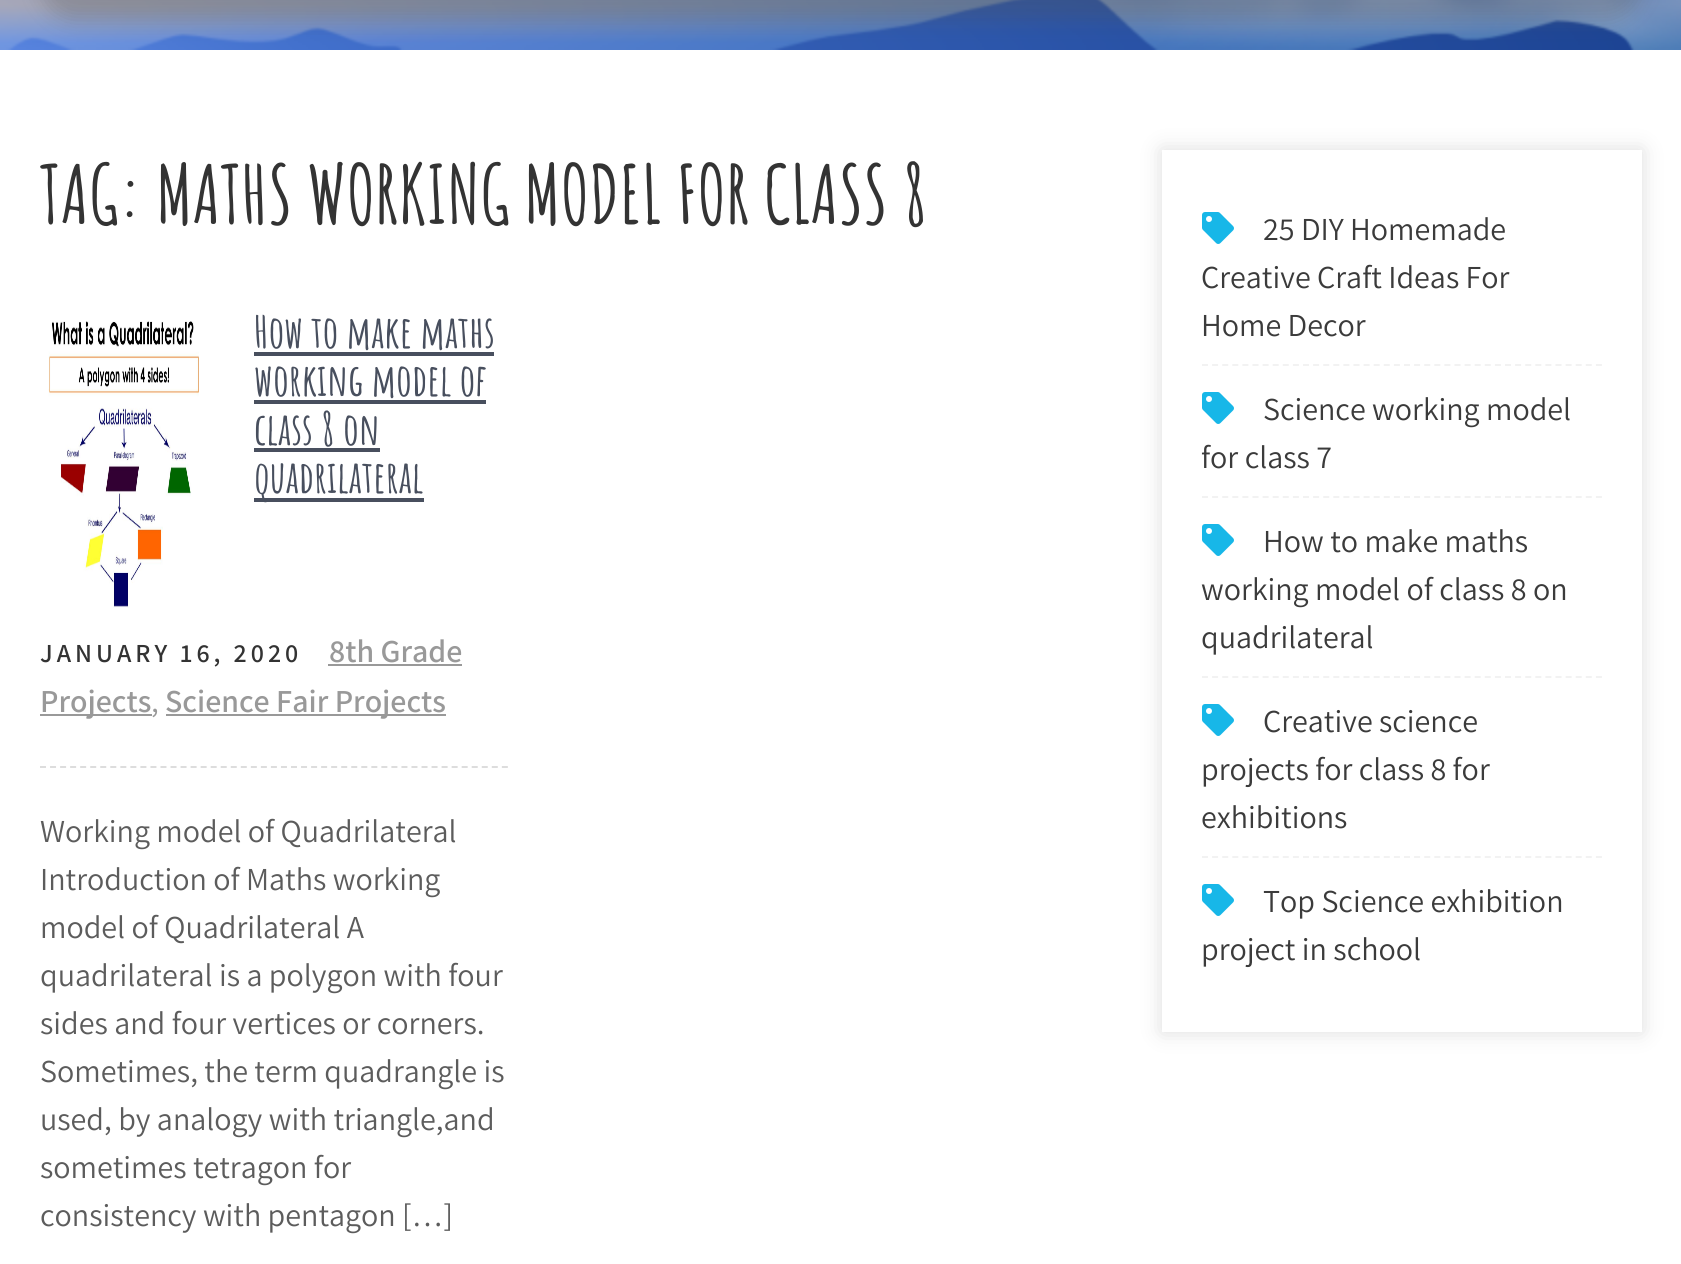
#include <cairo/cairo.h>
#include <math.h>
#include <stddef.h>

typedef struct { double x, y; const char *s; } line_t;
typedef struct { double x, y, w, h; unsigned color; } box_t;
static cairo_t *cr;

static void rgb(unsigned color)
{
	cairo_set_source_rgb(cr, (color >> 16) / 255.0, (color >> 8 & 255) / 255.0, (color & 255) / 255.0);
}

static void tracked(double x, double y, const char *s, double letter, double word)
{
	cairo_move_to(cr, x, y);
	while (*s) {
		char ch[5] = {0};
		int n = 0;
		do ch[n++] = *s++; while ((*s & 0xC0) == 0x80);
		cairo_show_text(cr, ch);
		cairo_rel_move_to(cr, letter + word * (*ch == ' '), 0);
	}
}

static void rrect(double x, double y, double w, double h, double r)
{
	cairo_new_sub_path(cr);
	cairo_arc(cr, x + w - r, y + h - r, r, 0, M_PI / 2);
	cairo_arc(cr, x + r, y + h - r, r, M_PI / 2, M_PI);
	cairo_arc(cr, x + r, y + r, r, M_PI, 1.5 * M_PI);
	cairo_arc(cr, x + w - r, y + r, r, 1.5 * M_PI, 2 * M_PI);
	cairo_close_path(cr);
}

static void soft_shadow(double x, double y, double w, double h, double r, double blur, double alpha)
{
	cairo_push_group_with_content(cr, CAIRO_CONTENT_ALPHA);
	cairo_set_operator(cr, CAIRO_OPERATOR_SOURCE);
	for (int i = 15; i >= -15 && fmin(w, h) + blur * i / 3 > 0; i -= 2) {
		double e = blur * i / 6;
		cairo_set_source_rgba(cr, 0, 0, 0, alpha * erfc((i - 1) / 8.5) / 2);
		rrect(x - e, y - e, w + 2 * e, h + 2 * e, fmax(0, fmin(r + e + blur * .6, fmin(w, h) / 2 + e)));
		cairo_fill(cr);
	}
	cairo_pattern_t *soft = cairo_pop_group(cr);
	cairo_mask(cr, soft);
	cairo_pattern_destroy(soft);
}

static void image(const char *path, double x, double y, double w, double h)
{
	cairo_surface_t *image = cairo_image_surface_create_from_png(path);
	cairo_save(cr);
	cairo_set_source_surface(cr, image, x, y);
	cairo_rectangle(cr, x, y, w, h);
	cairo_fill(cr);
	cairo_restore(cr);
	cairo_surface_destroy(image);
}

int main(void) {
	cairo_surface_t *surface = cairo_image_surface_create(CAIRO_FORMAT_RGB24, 1681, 1264);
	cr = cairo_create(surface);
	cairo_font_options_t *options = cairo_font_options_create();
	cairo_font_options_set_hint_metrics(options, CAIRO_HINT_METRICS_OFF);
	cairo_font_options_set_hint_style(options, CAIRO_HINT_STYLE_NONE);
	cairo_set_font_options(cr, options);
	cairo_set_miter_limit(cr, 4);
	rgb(0xffffff);
	cairo_paint(cr);
	image("img/1.png", 0, 0, 1681, 50);
	rgb(0x585858);
	soft_shadow(40, -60, 1602, 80, 40, 10, 0.3);
	{
		static const box_t items[] = {
			{254, 352, 240, 4, 0x484f5e},
			{254, 400, 232, 4, 0x484f5e},
			{254, 448, 126, 4, 0x484f5e},
			{254, 498, 170, 4, 0x484f5e},
		};
		for (size_t i = 0; i < sizeof items / sizeof *items; i++) {
			rgb(items[i].color);
			cairo_rectangle(cr, items[i].x, items[i].y, items[i].w, items[i].h);
			cairo_fill(cr);
		}
	}
	cairo_new_path(cr);
	cairo_move_to(cr, 40, 767);
	cairo_line_to(cr, 508, 767);
	rgb(0xdddddd);
	cairo_set_dash(cr, (double[]){6, 4.04}, 2, 0);
	cairo_stroke(cr);
	{
		static const box_t items[] = {
			{328, 664, 134, 2, 0x999999},
			{40, 714, 112, 2, 0x999999},
			{166, 714, 280, 2, 0x999999},
		};
		for (size_t i = 0; i < sizeof items / sizeof *items; i++) {
			rgb(items[i].color);
			cairo_rectangle(cr, items[i].x, items[i].y, items[i].w, items[i].h);
			cairo_fill(cr);
		}
	}
	image("img/2.png", 48, 321, 151, 287);
	cairo_save(cr);
	cairo_set_fill_rule(cr, CAIRO_FILL_RULE_EVEN_ODD);
	cairo_new_path(cr);
	cairo_move_to(cr, 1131, 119);
	cairo_line_to(cr, 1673, 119);
	cairo_line_to(cr, 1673, 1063);
	cairo_line_to(cr, 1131, 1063);
	cairo_close_path(cr);
	cairo_move_to(cr, 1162, 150);
	cairo_line_to(cr, 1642, 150);
	cairo_line_to(cr, 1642, 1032);
	cairo_line_to(cr, 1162, 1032);
	cairo_close_path(cr);
	cairo_clip(cr);
	rgb(0xdddddd);
	soft_shadow(1162, 150, 480, 882, 0, 10, 1);
	cairo_restore(cr);
	cairo_new_path(cr);
	cairo_move_to(cr, 1202, 365);
	cairo_line_to(cr, 1602, 365);
	rgb(0xf2f2f2);
	cairo_set_dash(cr, (double[]){6, 4.1}, 2, 0);
	cairo_stroke(cr);
	image("img/3.png", 1202, 212, 32, 32);
	cairo_new_path(cr);
	cairo_move_to(cr, 1202, 497);
	cairo_line_to(cr, 1602, 497);
	cairo_stroke(cr);
	image("img/3.png", 1202, 392, 32, 32);
	cairo_new_path(cr);
	cairo_move_to(cr, 1202, 677);
	cairo_line_to(cr, 1602, 677);
	cairo_stroke(cr);
	image("img/3.png", 1202, 524, 32, 32);
	cairo_new_path(cr);
	cairo_move_to(cr, 1202, 857);
	cairo_line_to(cr, 1602, 857);
	cairo_stroke(cr);
	image("img/3.png", 1202, 704, 32, 32);
	image("img/3.png", 1202, 884, 32, 32);
	cairo_select_font_face(cr, "Amatic SC", CAIRO_FONT_SLANT_NORMAL, CAIRO_FONT_WEIGHT_BOLD);
	cairo_set_font_size(cr, 80);
	rgb(0x333333);
	cairo_move_to(cr, 40, 224);
	cairo_show_text(cr, "TAG: MATHS WORKING MODEL FOR CLASS 8");
	cairo_set_font_size(cr, 44);
	rgb(0x484f5e);
	{
		static const line_t items[] = {
			{254, 348, "How to make maths"},
			{254, 396, "working model of"},
			{254, 445, "class 8 on"},
			{254, 493, "quadrilateral"},
		};
		for (size_t i = 0; i < sizeof items / sizeof *items; i++) {
			cairo_move_to(cr, items[i].x, items[i].y);
			cairo_show_text(cr, items[i].s);
		}
	}
	cairo_select_font_face(cr, "Assistant SemiBold", CAIRO_FONT_SLANT_NORMAL, CAIRO_FONT_WEIGHT_NORMAL);
	cairo_set_font_size(cr, 26);
	rgb(0x333333);
	tracked(40, 662, "JANUARY 16, 2020", 4, 0);
	cairo_set_font_size(cr, 32);
	rgb(0x999999);
	cairo_move_to(cr, 329, 662);
	cairo_show_text(cr, "8th Grade");
	cairo_move_to(cr, 40, 712);
	cairo_show_text(cr, "Projects");
	cairo_select_font_face(cr, "Assistant", CAIRO_FONT_SLANT_NORMAL, CAIRO_FONT_WEIGHT_NORMAL);
	cairo_move_to(cr, 151, 712);
	cairo_show_text(cr, ",");
	cairo_select_font_face(cr, "Assistant SemiBold", CAIRO_FONT_SLANT_NORMAL, CAIRO_FONT_WEIGHT_NORMAL);
	cairo_move_to(cr, 165, 712);
	cairo_show_text(cr, "Science Fair Projects");
	cairo_select_font_face(cr, "Assistant", CAIRO_FONT_SLANT_NORMAL, CAIRO_FONT_WEIGHT_NORMAL);
	rgb(0x5c5c5c);
	{
		static const line_t items[] = {
			{40, 842, "Working model of Quadrilateral"},
			{40, 890, "Introduction of Maths working"},
			{40, 938, "model of Quadrilateral A"},
			{40, 986, "quadrilateral is a polygon with four"},
			{40, 1034, "sides and four vertices or corners."},
			{40, 1082, "Sometimes, the term quadrangle is"},
			{40, 1130, "used, by analogy with triangle,and"},
			{40, 1178, "sometimes tetragon for"},
			{40, 1226, "consistency with pentagon […]"},
		};
		for (size_t i = 0; i < sizeof items / sizeof *items; i++) {
			cairo_move_to(cr, items[i].x, items[i].y);
			cairo_show_text(cr, items[i].s);
		}
	}
	rgb(0x3b3b3b);
	{
		static const line_t items[] = {
			{1263, 240, "25 DIY Homemade"},
			{1201, 288, "Creative Craft Ideas For"},
			{1201, 336, "Home Decor"},
			{1263, 420, "Science working model"},
			{1201, 468, "for class 7"},
			{1263, 552, "How to make maths"},
			{1201, 600, "working model of class 8 on"},
			{1201, 648, "quadrilateral"},
			{1263, 732, "Creative science"},
			{1201, 780, "projects for class 8 for"},
			{1201, 828, "exhibitions"},
			{1263, 912, "Top Science exhibition"},
			{1201, 960, "project in school"},
		};
		for (size_t i = 0; i < sizeof items / sizeof *items; i++) {
			cairo_move_to(cr, items[i].x, items[i].y);
			cairo_show_text(cr, items[i].s);
		}
	}
	cairo_surface_write_to_png(surface, "page.png");
	cairo_font_options_destroy(options);
	cairo_destroy(cr);
	cairo_surface_destroy(surface);
	return 0;
}
